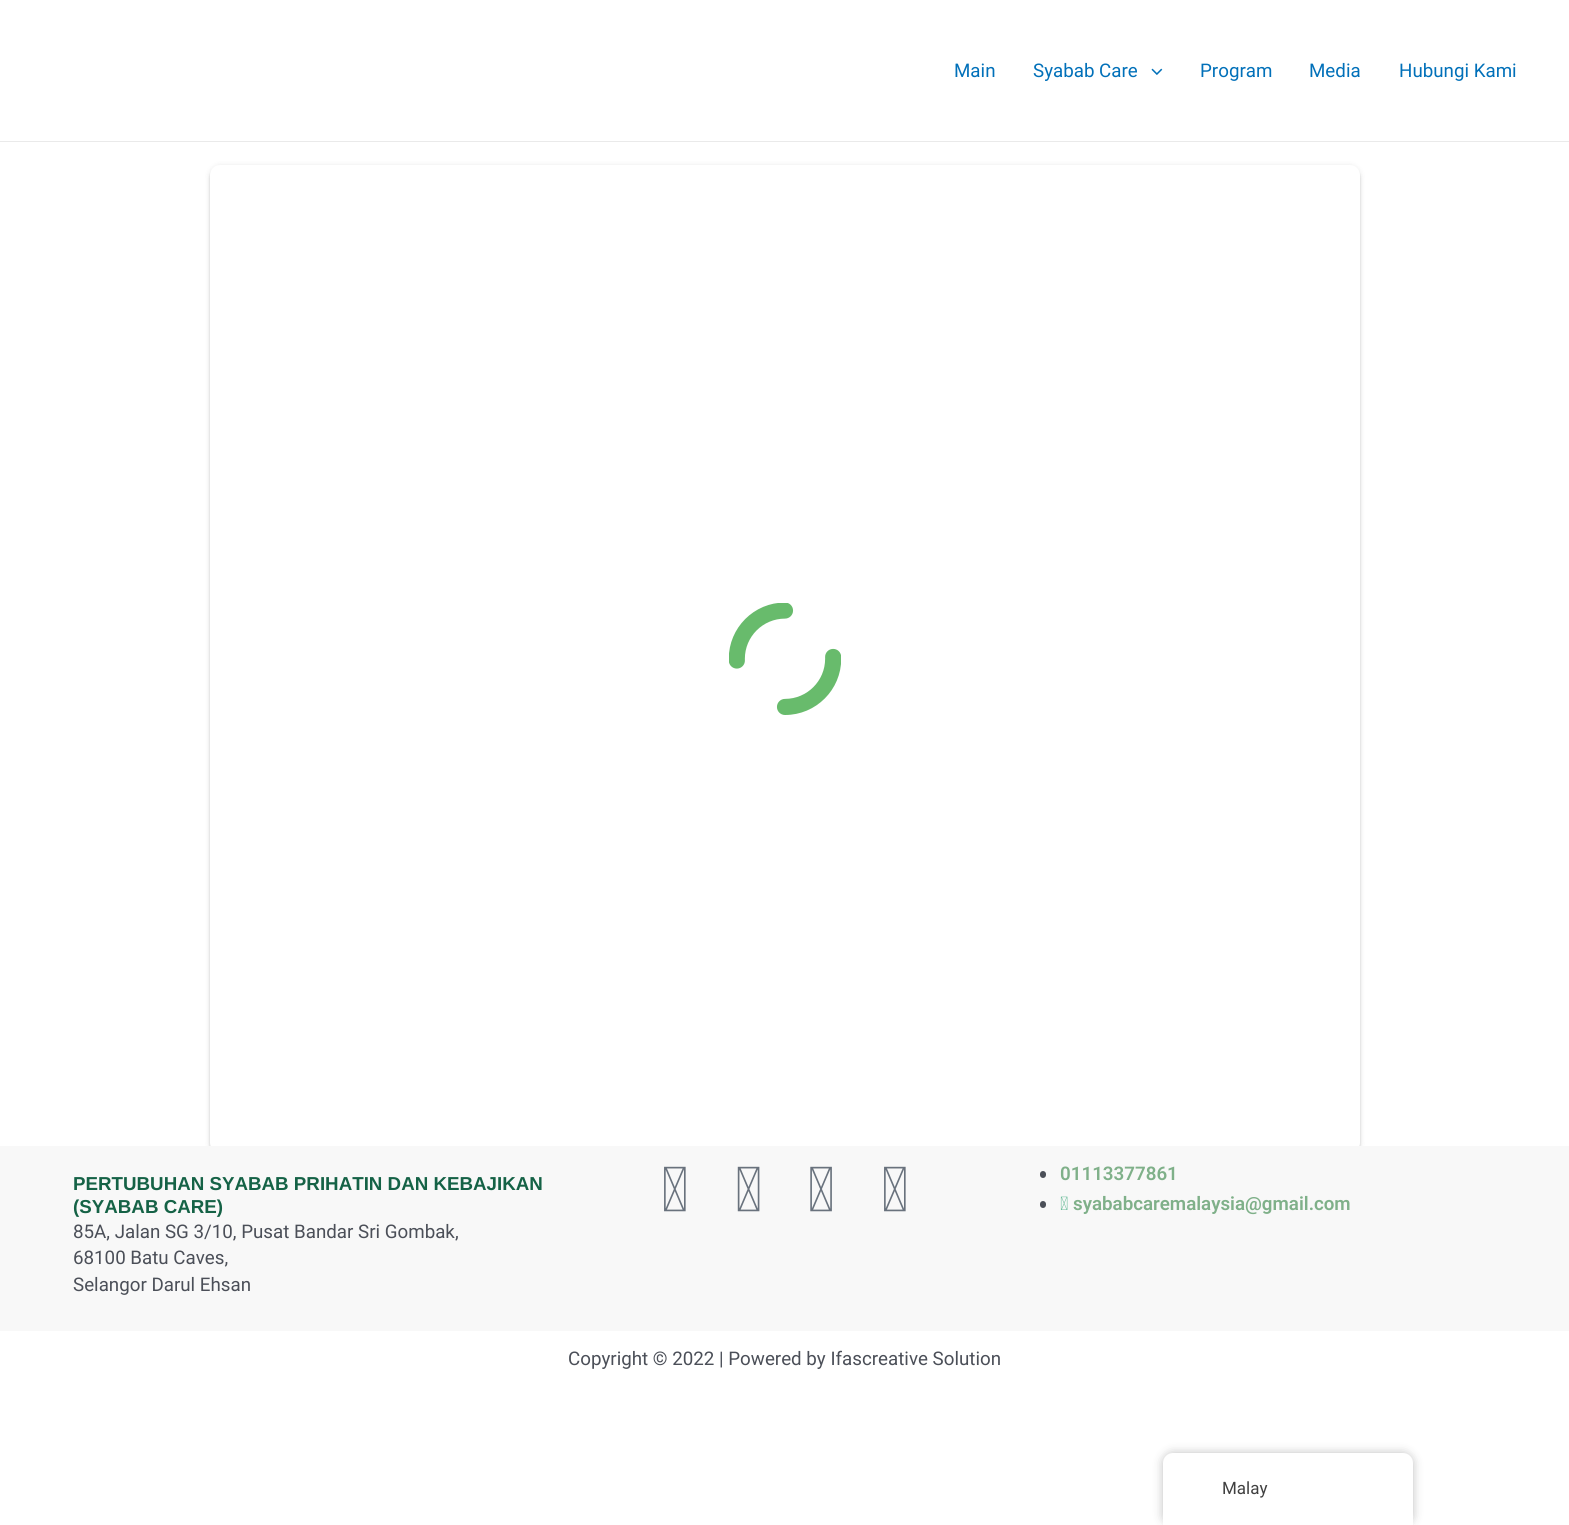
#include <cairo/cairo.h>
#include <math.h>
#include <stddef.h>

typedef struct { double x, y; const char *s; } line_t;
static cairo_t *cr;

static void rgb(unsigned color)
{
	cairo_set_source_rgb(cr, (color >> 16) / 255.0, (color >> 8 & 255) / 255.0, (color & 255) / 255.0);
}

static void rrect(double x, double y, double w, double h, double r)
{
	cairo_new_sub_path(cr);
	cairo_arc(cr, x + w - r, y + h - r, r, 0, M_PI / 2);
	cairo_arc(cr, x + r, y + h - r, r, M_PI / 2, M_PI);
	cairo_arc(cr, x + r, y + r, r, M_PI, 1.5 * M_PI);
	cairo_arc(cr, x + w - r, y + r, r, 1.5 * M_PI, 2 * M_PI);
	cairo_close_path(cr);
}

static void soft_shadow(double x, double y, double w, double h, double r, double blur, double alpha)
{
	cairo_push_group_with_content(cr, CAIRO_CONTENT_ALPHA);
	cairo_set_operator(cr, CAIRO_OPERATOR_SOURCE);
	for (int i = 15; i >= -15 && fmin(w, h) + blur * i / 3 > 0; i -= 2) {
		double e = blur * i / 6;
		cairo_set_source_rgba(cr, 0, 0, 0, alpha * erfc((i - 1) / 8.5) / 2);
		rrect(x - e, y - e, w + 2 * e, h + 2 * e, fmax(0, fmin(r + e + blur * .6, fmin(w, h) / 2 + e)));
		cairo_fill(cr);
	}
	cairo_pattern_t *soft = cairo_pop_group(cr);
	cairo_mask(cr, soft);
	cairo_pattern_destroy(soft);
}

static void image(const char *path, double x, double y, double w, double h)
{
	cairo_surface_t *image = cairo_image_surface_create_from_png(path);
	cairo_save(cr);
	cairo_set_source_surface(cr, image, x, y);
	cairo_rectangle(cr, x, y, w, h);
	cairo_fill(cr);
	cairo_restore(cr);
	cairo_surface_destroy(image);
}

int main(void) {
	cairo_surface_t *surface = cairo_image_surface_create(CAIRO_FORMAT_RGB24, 1569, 1525);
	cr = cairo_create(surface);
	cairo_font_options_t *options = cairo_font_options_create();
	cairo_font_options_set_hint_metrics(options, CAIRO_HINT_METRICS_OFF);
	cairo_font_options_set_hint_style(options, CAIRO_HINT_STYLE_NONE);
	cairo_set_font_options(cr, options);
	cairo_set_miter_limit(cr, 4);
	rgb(0xffffff);
	cairo_paint(cr);
	rgb(0xeaeaea);
	cairo_rectangle(cr, 0, 141, 1569, 1);
	cairo_fill(cr);
	image("img/1.png", 1151, 68, 12, 7);
	rgb(0x000000);
	soft_shadow(210, 166, 1150, 988, 10, 3, 0.12);
	soft_shadow(210, 168, 1150, 987, 10, 1, 0.14);
	rgb(0xffffff);
	rrect(210, 165, 1150, 988, 10);
	cairo_fill(cr);
	image("img/2.png", 729, 603, 112, 112);
	rgb(0xf8f8f8);
	cairo_rectangle(cr, 0, 1146, 1569, 185);
	cairo_fill(cr);
	image("img/3.png", 664, 1166, 22, 46);
	image("img/4.png", 737, 1166, 23, 46);
	image("img/5.png", 810, 1166, 22, 46);
	image("img/3.png", 884, 1166, 22, 46);
	rgb(0x4b4f58);
	rrect(1040, 1171, 6, 7, 3);
	cairo_fill(cr);
	rrect(1040, 1201, 6, 7, 3);
	cairo_fill(cr);
	image("img/6.png", 1060, 1196, 8, 14);
	rgb(0x000000);
	soft_shadow(1163, 1453, 250, 72, 10, 5, 0.25);
	rgb(0xffffff);
	cairo_new_path(cr);
	cairo_move_to(cr, 1173, 1453);
	cairo_line_to(cr, 1403, 1453);
	cairo_curve_to(cr, 1408.5, 1453, 1413, 1457.5, 1413, 1463);
	cairo_line_to(cr, 1413, 1525);
	cairo_line_to(cr, 1163, 1525);
	cairo_line_to(cr, 1163, 1463);
	cairo_curve_to(cr, 1163, 1457.5, 1167.5, 1453, 1173, 1453);
	cairo_close_path(cr);
	cairo_fill(cr);
	cairo_select_font_face(cr, "Roboto", CAIRO_FONT_SLANT_NORMAL, CAIRO_FONT_WEIGHT_NORMAL);
	cairo_set_font_size(cr, 18.75);
	rgb(0x0170b9);
	{
		static const line_t items[] = {
			{954, 77, "Main"},
			{1033, 77, "Syabab Care"},
			{1200, 77, "Program"},
			{1309, 77, "Media"},
			{1399, 77, "Hubungi Kami"},
		};
		for (size_t i = 0; i < sizeof items / sizeof *items; i++) {
			cairo_move_to(cr, items[i].x, items[i].y);
			cairo_show_text(cr, items[i].s);
		}
	}
	cairo_select_font_face(cr, "Liberation Sans", CAIRO_FONT_SLANT_NORMAL, CAIRO_FONT_WEIGHT_BOLD);
	rgb(0x156246);
	cairo_move_to(cr, 73, 1190);
	cairo_show_text(cr, "PERTUBUHAN SYABAB PRIHATIN DAN KEBAJIKAN");
	cairo_move_to(cr, 73, 1213);
	cairo_show_text(cr, "(SYABAB CARE)");
	cairo_select_font_face(cr, "Roboto", CAIRO_FONT_SLANT_NORMAL, CAIRO_FONT_WEIGHT_NORMAL);
	rgb(0x4b4f58);
	{
		static const line_t items[] = {
			{73, 1238, "85A, Jalan SG 3/10, Pusat Bandar Sri Gombak,"},
			{73, 1264, "68100 Batu Caves,"},
			{73, 1291, "Selangor Darul Ehsan"},
		};
		for (size_t i = 0; i < sizeof items / sizeof *items; i++) {
			cairo_move_to(cr, items[i].x, items[i].y);
			cairo_show_text(cr, items[i].s);
		}
	}
	cairo_select_font_face(cr, "Roboto SemiBold", CAIRO_FONT_SLANT_NORMAL, CAIRO_FONT_WEIGHT_NORMAL);
	rgb(0x7fb089);
	cairo_move_to(cr, 1060, 1180);
	cairo_show_text(cr, "01113377861");
	cairo_move_to(cr, 1073, 1210);
	cairo_show_text(cr, "syababcaremalaysia@gmail.com");
	cairo_select_font_face(cr, "Roboto", CAIRO_FONT_SLANT_NORMAL, CAIRO_FONT_WEIGHT_NORMAL);
	rgb(0x4b4f58);
	cairo_move_to(cr, 568, 1365);
	cairo_show_text(cr, "Copyright © 2022 | Powered by Ifascreative Solution");
	cairo_set_font_size(cr, 17);
	rgb(0x404040);
	cairo_move_to(cr, 1222, 1494);
	cairo_show_text(cr, "Malay");
	cairo_surface_write_to_png(surface, "page.png");
	cairo_font_options_destroy(options);
	cairo_destroy(cr);
	cairo_surface_destroy(surface);
	return 0;
}
